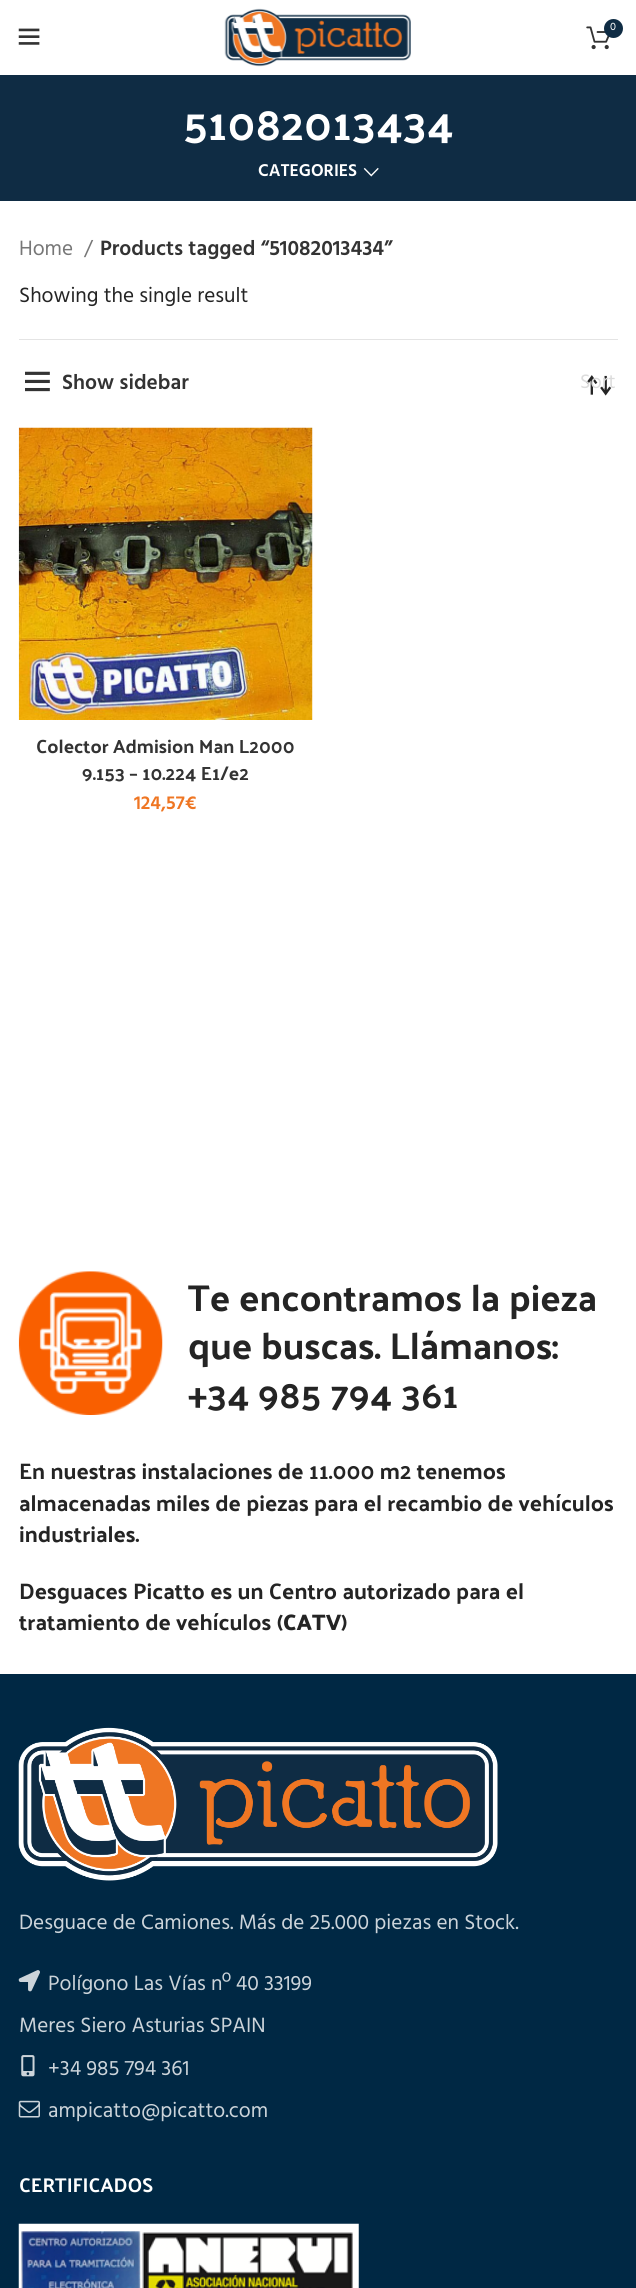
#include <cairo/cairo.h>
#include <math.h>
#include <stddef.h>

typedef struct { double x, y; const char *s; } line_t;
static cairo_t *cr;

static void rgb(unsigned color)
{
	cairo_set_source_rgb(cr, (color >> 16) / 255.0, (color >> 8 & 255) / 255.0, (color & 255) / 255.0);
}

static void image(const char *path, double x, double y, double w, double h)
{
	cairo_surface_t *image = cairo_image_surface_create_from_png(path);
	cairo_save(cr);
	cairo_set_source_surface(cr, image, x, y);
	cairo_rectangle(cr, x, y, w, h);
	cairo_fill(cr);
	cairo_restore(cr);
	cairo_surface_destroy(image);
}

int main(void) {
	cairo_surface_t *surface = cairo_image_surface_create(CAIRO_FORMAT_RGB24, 636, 2288);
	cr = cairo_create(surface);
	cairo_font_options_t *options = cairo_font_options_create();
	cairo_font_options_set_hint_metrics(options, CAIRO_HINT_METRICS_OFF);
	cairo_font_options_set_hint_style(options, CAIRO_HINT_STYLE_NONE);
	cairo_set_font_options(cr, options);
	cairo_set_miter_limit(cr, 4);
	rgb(0xffffff);
	cairo_paint(cr);
	image("img/1.png", 224, 8, 187, 59);
	image("img/2.png", 586, 26, 24, 24);
	rgb(0x0f2c44);
	cairo_arc(cr, 613.5, 28.5, 9.5, 0, 2 * M_PI);
	cairo_fill(cr);
	image("img/3.png", 18, 28, 22, 17);
	cairo_rectangle(cr, 0, 75, 636, 126);
	cairo_fill(cr);
	image("img/4.png", 363, 167, 16, 10);
	rgb(0xe4e4e4);
	cairo_rectangle(cr, 19, 339, 599, 1);
	cairo_fill(cr);
	image("img/5.png", 25, 371, 25, 21);
	image("img/6.png", 586, 375, 26, 21);
	image("img/7.png", 18, 427, 295, 293);
	image("img/8.png", 18, 1271, 145, 144);
	rgb(0x002844);
	cairo_rectangle(cr, 0, 1674, 636, 614);
	cairo_fill(cr);
	image("img/9.png", 18, 1727, 480, 154);
	image("img/10.png", 18, 1970, 22, 22);
	image("img/11.png", 21, 2055, 14, 22);
	image("img/12.png", 18, 2100, 22, 18);
	image("img/13.png", 18, 2223, 341, 65);
	cairo_select_font_face(cr, "Hind", CAIRO_FONT_SLANT_NORMAL, CAIRO_FONT_WEIGHT_NORMAL);
	cairo_set_font_size(cr, 11);
	rgb(0xffffff);
	cairo_move_to(cr, 610, 30);
	cairo_show_text(cr, "0");
	cairo_select_font_face(cr, "Palanquin Dark", CAIRO_FONT_SLANT_NORMAL, CAIRO_FONT_WEIGHT_NORMAL);
	cairo_set_font_size(cr, 45);
	cairo_move_to(cr, 183, 140);
	cairo_show_text(cr, "51082013434");
	cairo_select_font_face(cr, "Hind SemiBold", CAIRO_FONT_SLANT_NORMAL, CAIRO_FONT_WEIGHT_NORMAL);
	cairo_set_font_size(cr, 17.5);
	cairo_move_to(cr, 258, 176);
	cairo_show_text(cr, "CATEGORIES");
	cairo_select_font_face(cr, "Hind", CAIRO_FONT_SLANT_NORMAL, CAIRO_FONT_WEIGHT_NORMAL);
	cairo_set_font_size(cr, 21.25);
	rgb(0x777777);
	cairo_move_to(cr, 19, 255);
	cairo_show_text(cr, "Home");
	cairo_move_to(cr, 84, 255);
	cairo_show_text(cr, "/");
	cairo_select_font_face(cr, "Hind SemiBold", CAIRO_FONT_SLANT_NORMAL, CAIRO_FONT_WEIGHT_NORMAL);
	rgb(0x333333);
	cairo_move_to(cr, 100, 255);
	cairo_show_text(cr, "Products tagged “51082013434”");
	cairo_select_font_face(cr, "Hind", CAIRO_FONT_SLANT_NORMAL, CAIRO_FONT_WEIGHT_NORMAL);
	rgb(0x242424);
	cairo_move_to(cr, 19, 302);
	cairo_show_text(cr, "Showing the single result");
	cairo_select_font_face(cr, "Hind SemiBold", CAIRO_FONT_SLANT_NORMAL, CAIRO_FONT_WEIGHT_NORMAL);
	rgb(0x333333);
	cairo_move_to(cr, 62, 389);
	cairo_show_text(cr, "Show sidebar");
	cairo_select_font_face(cr, "Hind", CAIRO_FONT_SLANT_NORMAL, CAIRO_FONT_WEIGHT_NORMAL);
	cairo_set_font_size(cr, 20);
	rgb(0xdcdcdc);
	cairo_move_to(cr, 580, 388);
	cairo_show_text(cr, "Sort");
	cairo_select_font_face(cr, "Palanquin Dark", CAIRO_FONT_SLANT_NORMAL, CAIRO_FONT_WEIGHT_NORMAL);
	cairo_set_font_size(cr, 19.1);
	rgb(0x333333);
	cairo_move_to(cr, 36, 753);
	cairo_show_text(cr, "Colector Admision Man L2000");
	cairo_move_to(cr, 82, 780);
	cairo_show_text(cr, "9.153 – 10.224 E1/e2");
	cairo_select_font_face(cr, "Hind SemiBold", CAIRO_FONT_SLANT_NORMAL, CAIRO_FONT_WEIGHT_NORMAL);
	rgb(0xef7623);
	cairo_move_to(cr, 134, 809);
	cairo_show_text(cr, "124,57€");
	cairo_select_font_face(cr, "Palanquin Dark", CAIRO_FONT_SLANT_NORMAL, CAIRO_FONT_WEIGHT_NORMAL);
	cairo_set_font_size(cr, 37.5);
	rgb(0x242424);
	{
		static const line_t items[] = {
			{188, 1311, "Te encontramos la pieza"},
			{188, 1359, "que buscas. Llámanos:"},
			{188, 1408, "+34 985 794 361"},
		};
		for (size_t i = 0; i < sizeof items / sizeof *items; i++) {
			cairo_move_to(cr, items[i].x, items[i].y);
			cairo_show_text(cr, items[i].s);
		}
	}
	cairo_set_font_size(cr, 22.5);
	{
		static const line_t items[] = {
			{19, 1479, "En nuestras instalaciones de 11.000 m2 tenemos"},
			{19, 1511, "almacenadas miles de piezas para el recambio de vehículos"},
			{19, 1542, "industriales."},
			{19, 1599, "Desguaces Picatto es un Centro autorizado para el"},
			{19, 1630, "tratamiento de vehículos ("},
		};
		for (size_t i = 0; i < sizeof items / sizeof *items; i++) {
			cairo_move_to(cr, items[i].x, items[i].y);
			cairo_show_text(cr, items[i].s);
		}
	}
	cairo_select_font_face(cr, "Palanquin Dark SemiBold", CAIRO_FONT_SLANT_NORMAL, CAIRO_FONT_WEIGHT_NORMAL);
	cairo_move_to(cr, 283, 1630);
	cairo_show_text(cr, "CATV");
	cairo_select_font_face(cr, "Palanquin Dark", CAIRO_FONT_SLANT_NORMAL, CAIRO_FONT_WEIGHT_NORMAL);
	cairo_move_to(cr, 341, 1630);
	cairo_show_text(cr, ")");
	cairo_select_font_face(cr, "Hind", CAIRO_FONT_SLANT_NORMAL, CAIRO_FONT_WEIGHT_NORMAL);
	cairo_set_font_size(cr, 21.25);
	rgb(0xccd4da);
	{
		static const line_t items[] = {
			{19, 1929, "Desguace de Camiones. Más de 25.000 piezas en Stock."},
			{48, 1990, "Polígono Las Vías nº 40 33199"},
			{19, 2032, "Meres Siero Asturias SPAIN"},
			{48, 2075, "+34 985 794 361"},
			{48, 2117, "ampicatto@picatto.com"},
		};
		for (size_t i = 0; i < sizeof items / sizeof *items; i++) {
			cairo_move_to(cr, items[i].x, items[i].y);
			cairo_show_text(cr, items[i].s);
		}
	}
	cairo_select_font_face(cr, "Palanquin Dark", CAIRO_FONT_SLANT_NORMAL, CAIRO_FONT_WEIGHT_NORMAL);
	cairo_set_font_size(cr, 20);
	rgb(0xffffff);
	cairo_move_to(cr, 19, 2192);
	cairo_show_text(cr, "CERTIFICADOS");
	cairo_surface_write_to_png(surface, "page.png");
	cairo_font_options_destroy(options);
	cairo_destroy(cr);
	cairo_surface_destroy(surface);
	return 0;
}
